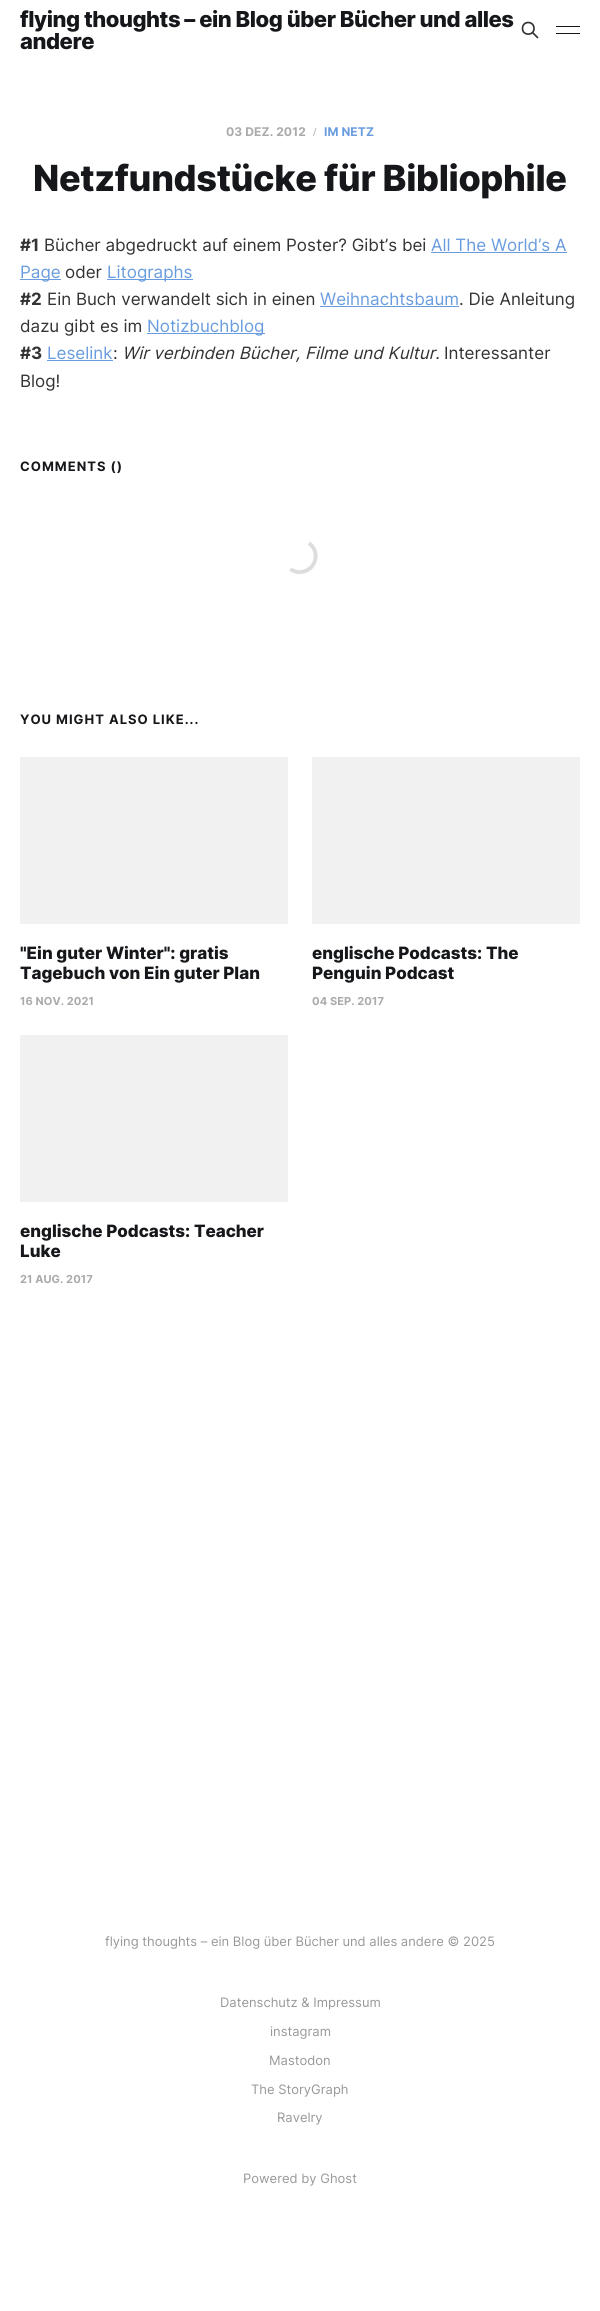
#include <cairo/cairo.h>
#include <math.h>
#include <stddef.h>

typedef struct { double x, y; const char *s; } line_t;
typedef struct { double x, y, w, h; unsigned color; } box_t;
static cairo_t *cr;

static void rgb(unsigned color)
{
	cairo_set_source_rgb(cr, (color >> 16) / 255.0, (color >> 8 & 255) / 255.0, (color & 255) / 255.0);
}

static void tracked(double x, double y, const char *s, double letter, double word)
{
	cairo_move_to(cr, x, y);
	while (*s) {
		char ch[5] = {0};
		int n = 0;
		do ch[n++] = *s++; while ((*s & 0xC0) == 0x80);
		cairo_show_text(cr, ch);
		cairo_rel_move_to(cr, letter + word * (*ch == ' '), 0);
	}
}

static void image(const char *path, double x, double y, double w, double h)
{
	cairo_surface_t *image = cairo_image_surface_create_from_png(path);
	cairo_save(cr);
	cairo_set_source_surface(cr, image, x, y);
	cairo_rectangle(cr, x, y, w, h);
	cairo_fill(cr);
	cairo_restore(cr);
	cairo_surface_destroy(image);
}

int main(void) {
	cairo_surface_t *surface = cairo_image_surface_create(CAIRO_FORMAT_RGB24, 600, 2311);
	cr = cairo_create(surface);
	cairo_font_options_t *options = cairo_font_options_create();
	cairo_font_options_set_hint_metrics(options, CAIRO_HINT_METRICS_OFF);
	cairo_font_options_set_hint_style(options, CAIRO_HINT_STYLE_NONE);
	cairo_set_font_options(cr, options);
	cairo_set_miter_limit(cr, 4);
	rgb(0xffffff);
	cairo_paint(cr);
	cairo_new_path(cr);
	cairo_move_to(cr, 537.5, 37.5);
	cairo_line_to(cr, 532.5, 32.5);
	cairo_move_to(cr, 534, 28.5);
	cairo_curve_to(cr, 534, 36, 522.5, 36, 522.5, 28.5);
	cairo_curve_to(cr, 522.5, 20.5, 534, 20.5, 534, 28.5);
	cairo_close_path(cr);
	rgb(0x333333);
	cairo_set_line_width(cr, 1.7);
	cairo_set_line_cap(cr, CAIRO_LINE_CAP_ROUND);
	cairo_set_line_join(cr, CAIRO_LINE_JOIN_ROUND);
	cairo_stroke(cr);
	{
		static const box_t items[] = {
			{556, 26, 24, 1, 0x15171a},
			{556, 33, 24, 1, 0x15171a},
			{431, 252, 136, 1, 0x699cde},
			{20, 279, 41, 1, 0x699cde},
			{107, 279, 86, 1, 0x699cde},
			{320, 306, 139, 1, 0x699cde},
			{147, 333, 118, 1, 0x699cde},
			{47, 360, 66, 1, 0x699cde},
		};
		for (size_t i = 0; i < sizeof items / sizeof *items; i++) {
			rgb(items[i].color);
			cairo_rectangle(cr, items[i].x, items[i].y, items[i].w, items[i].h);
			cairo_fill(cr);
		}
	}
	image("img/1.png", 289, 541, 29, 33);
	{
		static const box_t items[] = {
			{20, 757, 268, 167, 0xf1f1f1},
			{312, 757, 268, 167, 0xf1f1f1},
			{20, 1035, 268, 167, 0xf1f1f1},
		};
		for (size_t i = 0; i < sizeof items / sizeof *items; i++) {
			rgb(items[i].color);
			cairo_rectangle(cr, items[i].x, items[i].y, items[i].w, items[i].h);
			cairo_fill(cr);
		}
	}
	cairo_select_font_face(cr, "Inter ExtraBold", CAIRO_FONT_SLANT_NORMAL, CAIRO_FONT_WEIGHT_NORMAL);
	cairo_set_font_size(cr, 22);
	rgb(0x15171a);
	tracked(20, 27, "flying thoughts – ein Blog über Bücher und alles", -0.45, 0);
	tracked(20, 49, "andere", -0.45, 0);
	cairo_select_font_face(cr, "Inter", CAIRO_FONT_SLANT_NORMAL, CAIRO_FONT_WEIGHT_BOLD);
	cairo_set_font_size(cr, 12);
	rgb(0xaaaaaa);
	tracked(226, 136, "03 DEZ. 2012", 0.1, 0);
	cairo_select_font_face(cr, "Liberation Serif", CAIRO_FONT_SLANT_NORMAL, CAIRO_FONT_WEIGHT_BOLD);
	tracked(313, 136, "/", 0.1, 0);
	cairo_select_font_face(cr, "Inter", CAIRO_FONT_SLANT_NORMAL, CAIRO_FONT_WEIGHT_BOLD);
	rgb(0x699cde);
	tracked(324, 136, "IM NETZ", 0.1, 0);
	cairo_select_font_face(cr, "Inter ExtraBold", CAIRO_FONT_SLANT_NORMAL, CAIRO_FONT_WEIGHT_NORMAL);
	cairo_set_font_size(cr, 36);
	rgb(0x15171a);
	tracked(33, 191, "Netzfundstücke für Bibliophile", -0.35, 0);
	cairo_select_font_face(cr, "Inter", CAIRO_FONT_SLANT_NORMAL, CAIRO_FONT_WEIGHT_BOLD);
	cairo_set_font_size(cr, 17);
	rgb(0x333333);
	cairo_move_to(cr, 20, 251);
	cairo_show_text(cr, "#1");
	cairo_select_font_face(cr, "Inter", CAIRO_FONT_SLANT_NORMAL, CAIRO_FONT_WEIGHT_NORMAL);
	cairo_move_to(cr, 44, 251);
	cairo_show_text(cr, "Bücher abgedruckt auf einem Poster? Gibt’s bei");
	rgb(0x699cde);
	cairo_move_to(cr, 431, 251);
	cairo_show_text(cr, "All The World’s A");
	cairo_move_to(cr, 20, 278);
	cairo_show_text(cr, "Page");
	rgb(0x333333);
	cairo_move_to(cr, 65, 278);
	cairo_show_text(cr, "oder");
	rgb(0x699cde);
	cairo_move_to(cr, 107, 278);
	cairo_show_text(cr, "Litographs");
	cairo_select_font_face(cr, "Inter", CAIRO_FONT_SLANT_NORMAL, CAIRO_FONT_WEIGHT_BOLD);
	rgb(0x333333);
	cairo_move_to(cr, 20, 305);
	cairo_show_text(cr, "#2");
	cairo_select_font_face(cr, "Inter", CAIRO_FONT_SLANT_NORMAL, CAIRO_FONT_WEIGHT_NORMAL);
	cairo_move_to(cr, 47, 305);
	cairo_show_text(cr, "Ein Buch verwandelt sich in einen");
	rgb(0x699cde);
	cairo_move_to(cr, 320, 305);
	cairo_show_text(cr, "Weihnachtsbaum");
	rgb(0x333333);
	cairo_move_to(cr, 459, 305);
	cairo_show_text(cr, ". Die Anleitung");
	cairo_move_to(cr, 20, 332);
	cairo_show_text(cr, "dazu gibt es im");
	rgb(0x699cde);
	cairo_move_to(cr, 147, 332);
	cairo_show_text(cr, "Notizbuchblog");
	cairo_select_font_face(cr, "Inter", CAIRO_FONT_SLANT_NORMAL, CAIRO_FONT_WEIGHT_BOLD);
	rgb(0x333333);
	cairo_move_to(cr, 20, 359);
	cairo_show_text(cr, "#3");
	cairo_select_font_face(cr, "Inter", CAIRO_FONT_SLANT_NORMAL, CAIRO_FONT_WEIGHT_NORMAL);
	rgb(0x699cde);
	cairo_move_to(cr, 47, 359);
	cairo_show_text(cr, "Leselink");
	rgb(0x333333);
	cairo_move_to(cr, 113, 359);
	cairo_show_text(cr, ":");
	cairo_select_font_face(cr, "Inter", CAIRO_FONT_SLANT_ITALIC, CAIRO_FONT_WEIGHT_NORMAL);
	cairo_move_to(cr, 122, 359);
	cairo_show_text(cr, "Wir verbinden Bücher, Filme und Kultur.");
	cairo_select_font_face(cr, "Inter", CAIRO_FONT_SLANT_NORMAL, CAIRO_FONT_WEIGHT_NORMAL);
	cairo_move_to(cr, 444, 359);
	cairo_show_text(cr, "Interessanter");
	cairo_move_to(cr, 20, 387);
	cairo_show_text(cr, "Blog!");
	cairo_select_font_face(cr, "Inter", CAIRO_FONT_SLANT_NORMAL, CAIRO_FONT_WEIGHT_BOLD);
	cairo_set_font_size(cr, 13);
	rgb(0x15171a);
	tracked(20, 471, "COMMENTS ()", 1, 0);
	tracked(20, 724, "YOU MIGHT ALSO LIKE...", 1, 0);
	cairo_select_font_face(cr, "Inter ExtraBold", CAIRO_FONT_SLANT_NORMAL, CAIRO_FONT_WEIGHT_NORMAL);
	cairo_set_font_size(cr, 17);
	cairo_move_to(cr, 20, 959);
	cairo_show_text(cr, "\"Ein guter Winter\": gratis");
	cairo_move_to(cr, 20, 979);
	cairo_show_text(cr, "Tagebuch von Ein guter Plan");
	cairo_select_font_face(cr, "Inter", CAIRO_FONT_SLANT_NORMAL, CAIRO_FONT_WEIGHT_BOLD);
	cairo_set_font_size(cr, 11);
	rgb(0xaaaaaa);
	tracked(20, 1005, "16 NOV. 2021", 0.1, 0);
	cairo_select_font_face(cr, "Inter ExtraBold", CAIRO_FONT_SLANT_NORMAL, CAIRO_FONT_WEIGHT_NORMAL);
	cairo_set_font_size(cr, 17);
	rgb(0x15171a);
	cairo_move_to(cr, 312, 959);
	cairo_show_text(cr, "englische Podcasts: The");
	cairo_move_to(cr, 312, 979);
	cairo_show_text(cr, "Penguin Podcast");
	cairo_select_font_face(cr, "Inter", CAIRO_FONT_SLANT_NORMAL, CAIRO_FONT_WEIGHT_BOLD);
	cairo_set_font_size(cr, 11);
	rgb(0xaaaaaa);
	tracked(312, 1005, "04 SEP. 2017", 0.1, 0);
	cairo_select_font_face(cr, "Inter ExtraBold", CAIRO_FONT_SLANT_NORMAL, CAIRO_FONT_WEIGHT_NORMAL);
	cairo_set_font_size(cr, 17);
	rgb(0x15171a);
	cairo_move_to(cr, 20, 1237);
	cairo_show_text(cr, "englische Podcasts: Teacher");
	cairo_move_to(cr, 20, 1257);
	cairo_show_text(cr, "Luke");
	cairo_select_font_face(cr, "Inter", CAIRO_FONT_SLANT_NORMAL, CAIRO_FONT_WEIGHT_BOLD);
	cairo_set_font_size(cr, 11);
	rgb(0xaaaaaa);
	tracked(20, 1283, "21 AUG. 2017", 0.1, 0);
	cairo_select_font_face(cr, "Inter", CAIRO_FONT_SLANT_NORMAL, CAIRO_FONT_WEIGHT_NORMAL);
	cairo_set_font_size(cr, 13);
	rgb(0x999999);
	{
		static const line_t items[] = {
			{105, 1946, "flying thoughts – ein Blog über Bücher und alles andere © 2025"},
			{220, 2007, "Datenschutz & Impressum"},
			{270, 2036, "instagram"},
			{269, 2065, "Mastodon"},
			{251, 2094, "The StoryGraph"},
			{277, 2122, "Ravelry"},
			{243, 2183, "Powered by Ghost"},
		};
		for (size_t i = 0; i < sizeof items / sizeof *items; i++) {
			cairo_move_to(cr, items[i].x, items[i].y);
			cairo_show_text(cr, items[i].s);
		}
	}
	cairo_surface_write_to_png(surface, "page.png");
	cairo_font_options_destroy(options);
	cairo_destroy(cr);
	cairo_surface_destroy(surface);
	return 0;
}
